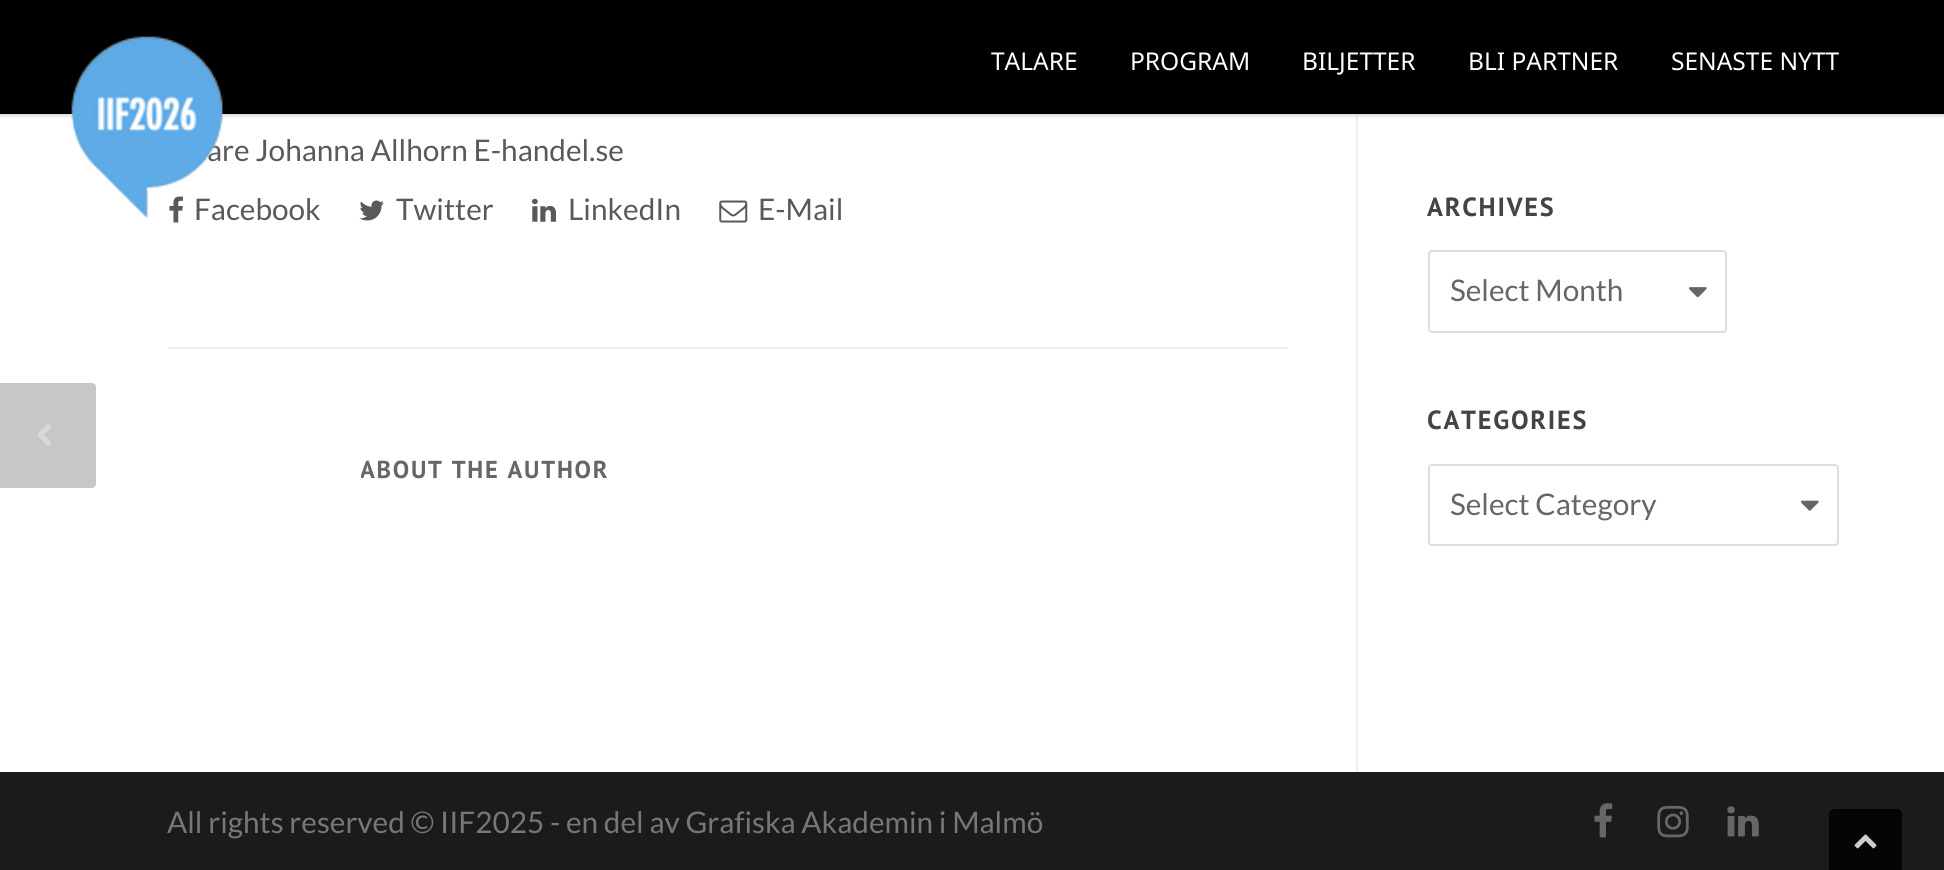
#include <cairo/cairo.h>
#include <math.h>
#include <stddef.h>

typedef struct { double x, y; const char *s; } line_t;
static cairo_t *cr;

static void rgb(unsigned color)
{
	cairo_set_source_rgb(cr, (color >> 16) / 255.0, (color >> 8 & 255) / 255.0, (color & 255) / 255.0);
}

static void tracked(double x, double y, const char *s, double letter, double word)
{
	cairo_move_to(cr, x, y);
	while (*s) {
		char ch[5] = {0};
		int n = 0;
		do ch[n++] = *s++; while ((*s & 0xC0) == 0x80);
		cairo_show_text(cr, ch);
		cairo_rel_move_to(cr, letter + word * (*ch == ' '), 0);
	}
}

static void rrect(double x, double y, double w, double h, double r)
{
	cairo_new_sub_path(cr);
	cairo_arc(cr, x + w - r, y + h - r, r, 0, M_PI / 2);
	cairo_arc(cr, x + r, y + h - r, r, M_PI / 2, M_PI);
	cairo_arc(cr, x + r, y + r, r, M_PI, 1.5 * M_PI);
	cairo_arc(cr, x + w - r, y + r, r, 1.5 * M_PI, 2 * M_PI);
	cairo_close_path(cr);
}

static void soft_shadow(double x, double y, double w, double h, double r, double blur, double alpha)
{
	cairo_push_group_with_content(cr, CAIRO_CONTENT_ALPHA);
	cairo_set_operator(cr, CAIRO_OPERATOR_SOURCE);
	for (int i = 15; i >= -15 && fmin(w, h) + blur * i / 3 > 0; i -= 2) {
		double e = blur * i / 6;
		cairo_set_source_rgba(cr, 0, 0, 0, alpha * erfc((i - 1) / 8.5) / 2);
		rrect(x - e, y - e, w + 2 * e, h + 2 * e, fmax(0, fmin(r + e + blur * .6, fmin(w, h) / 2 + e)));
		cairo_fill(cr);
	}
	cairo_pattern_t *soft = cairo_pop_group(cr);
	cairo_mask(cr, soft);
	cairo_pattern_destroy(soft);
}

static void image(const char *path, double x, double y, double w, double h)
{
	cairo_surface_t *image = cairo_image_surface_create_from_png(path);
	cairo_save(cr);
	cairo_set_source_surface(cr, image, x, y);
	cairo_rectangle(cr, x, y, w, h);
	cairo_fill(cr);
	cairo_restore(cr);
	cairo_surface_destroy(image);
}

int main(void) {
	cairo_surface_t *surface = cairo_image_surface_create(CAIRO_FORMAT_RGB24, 1944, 870);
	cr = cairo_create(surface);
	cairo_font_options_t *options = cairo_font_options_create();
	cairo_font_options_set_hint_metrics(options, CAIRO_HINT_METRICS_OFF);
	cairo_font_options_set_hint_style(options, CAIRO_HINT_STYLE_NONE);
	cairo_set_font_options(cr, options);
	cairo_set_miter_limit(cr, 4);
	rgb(0xffffff);
	cairo_paint(cr);
	rgb(0xefefef);
	cairo_rectangle(cr, 1356, 114, 2, 658);
	cairo_fill(cr);
	rgb(0x000000);
	soft_shadow(-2, -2, 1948, 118, 0, 2, 0.16);
	rgb(0x000000);
	cairo_rectangle(cr, 0, 0, 1944, 114);
	cairo_fill(cr);
	image("img/2.png", 169, 196, 14, 27);
	image("img/3.png", 359, 200, 25, 21);
	image("img/4.png", 532, 198, 24, 24);
	image("img/5.png", 719, 200, 29, 23);
	rgb(0xc7c7c7);
	cairo_new_path(cr);
	cairo_move_to(cr, -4, 383);
	cairo_line_to(cr, 92, 383);
	cairo_curve_to(cr, 94, 383, 96, 385, 96, 387);
	cairo_line_to(cr, 96, 484);
	cairo_curve_to(cr, 96, 486, 94, 488, 92, 488);
	cairo_line_to(cr, -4, 488);
	cairo_close_path(cr);
	cairo_fill(cr);
	image("img/6.png", 37, 424, 14, 22);
	rgb(0xefefef);
	cairo_rectangle(cr, 168, 347, 1120, 2);
	cairo_fill(cr);
	image("img/7.png", 1689, 287, 18, 11);
	rrect(1429, 251, 297, 81, 3);
	rgb(0xdddddd);
	cairo_stroke(cr);
	image("img/8.png", 1801, 500, 18, 11);
	rrect(1429, 465, 409, 80, 3);
	cairo_stroke(cr);
	rgb(0x1b1b1b);
	cairo_rectangle(cr, 0, 772, 1944, 98);
	cairo_fill(cr);
	image("img/9.png", 1594, 803, 19, 35);
	image("img/10.png", 1657, 805, 32, 33);
	image("img/11.png", 1727, 806, 32, 31);
	rgb(0x050505);
	cairo_new_path(cr);
	cairo_move_to(cr, 1834, 809);
	cairo_line_to(cr, 1897, 809);
	cairo_curve_to(cr, 1900, 809, 1902, 811, 1902, 814);
	cairo_line_to(cr, 1902, 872);
	cairo_line_to(cr, 1829, 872);
	cairo_line_to(cr, 1829, 814);
	cairo_curve_to(cr, 1829, 811, 1831, 809, 1834, 809);
	cairo_close_path(cr);
	cairo_fill(cr);
	image("img/12.png", 1854, 834, 23, 15);
	cairo_select_font_face(cr, "Noto Sans", CAIRO_FONT_SLANT_NORMAL, CAIRO_FONT_WEIGHT_NORMAL);
	cairo_set_font_size(cr, 24.5);
	rgb(0xffffff);
	{
		static const line_t items[] = {
			{991, 70, "TALARE"},
			{1130, 70, "PROGRAM"},
			{1302, 70, "BILJETTER"},
			{1468, 70, "BLI PARTNER"},
			{1671, 70, "SENASTE NYTT"},
		};
		for (size_t i = 0; i < sizeof items / sizeof *items; i++) {
			cairo_move_to(cr, items[i].x, items[i].y);
			cairo_show_text(cr, items[i].s);
		}
	}
	cairo_select_font_face(cr, "Lato", CAIRO_FONT_SLANT_NORMAL, CAIRO_FONT_WEIGHT_NORMAL);
	cairo_set_font_size(cr, 29.75);
	rgb(0x595959);
	cairo_move_to(cr, 207, 161);
	cairo_show_text(cr, "are Johanna Allhorn E-handel.se");
	cairo_move_to(cr, 194, 220);
	cairo_show_text(cr, "Facebook");
	image("img/1.png", 71, 36, 152, 182);
	{
		static const line_t items[] = {
			{396, 220, "Twitter"},
			{568, 220, "LinkedIn"},
			{758, 220, "E-Mail"},
		};
		for (size_t i = 0; i < sizeof items / sizeof *items; i++) {
			cairo_move_to(cr, items[i].x, items[i].y);
			cairo_show_text(cr, items[i].s);
		}
	}
	cairo_save(cr);
	cairo_rectangle(cr, 361, 453, 927, 49);
	cairo_clip(cr);
	cairo_select_font_face(cr, "PT Sans", CAIRO_FONT_SLANT_NORMAL, CAIRO_FONT_WEIGHT_BOLD);
	cairo_set_font_size(cr, 24.5);
	rgb(0x666666);
	tracked(360, 478, "ABOUT THE AUTHOR", 1.75, 0);
	cairo_restore(cr);
	cairo_select_font_face(cr, "PT Sans", CAIRO_FONT_SLANT_NORMAL, CAIRO_FONT_WEIGHT_BOLD);
	cairo_set_font_size(cr, 26.25);
	rgb(0x444444);
	tracked(1427, 216, "ARCHIVES", 1.75, 0);
	cairo_select_font_face(cr, "Lato", CAIRO_FONT_SLANT_NORMAL, CAIRO_FONT_WEIGHT_NORMAL);
	cairo_set_font_size(cr, 29.75);
	rgb(0x666666);
	cairo_move_to(cr, 1450, 301);
	cairo_show_text(cr, "Select Month");
	cairo_select_font_face(cr, "PT Sans", CAIRO_FONT_SLANT_NORMAL, CAIRO_FONT_WEIGHT_BOLD);
	cairo_set_font_size(cr, 26.25);
	rgb(0x444444);
	tracked(1427, 429, "CATEGORIES", 1.75, 0);
	cairo_select_font_face(cr, "Lato", CAIRO_FONT_SLANT_NORMAL, CAIRO_FONT_WEIGHT_NORMAL);
	cairo_set_font_size(cr, 29.75);
	rgb(0x666666);
	cairo_move_to(cr, 1450, 515);
	cairo_show_text(cr, "Select Category");
	rgb(0x777777);
	cairo_move_to(cr, 167, 833);
	cairo_show_text(cr, "All rights reserved © IIF2025 - en del av Grafiska Akademin i Malmö");
	cairo_surface_write_to_png(surface, "page.png");
	cairo_font_options_destroy(options);
	cairo_destroy(cr);
	cairo_surface_destroy(surface);
	return 0;
}
